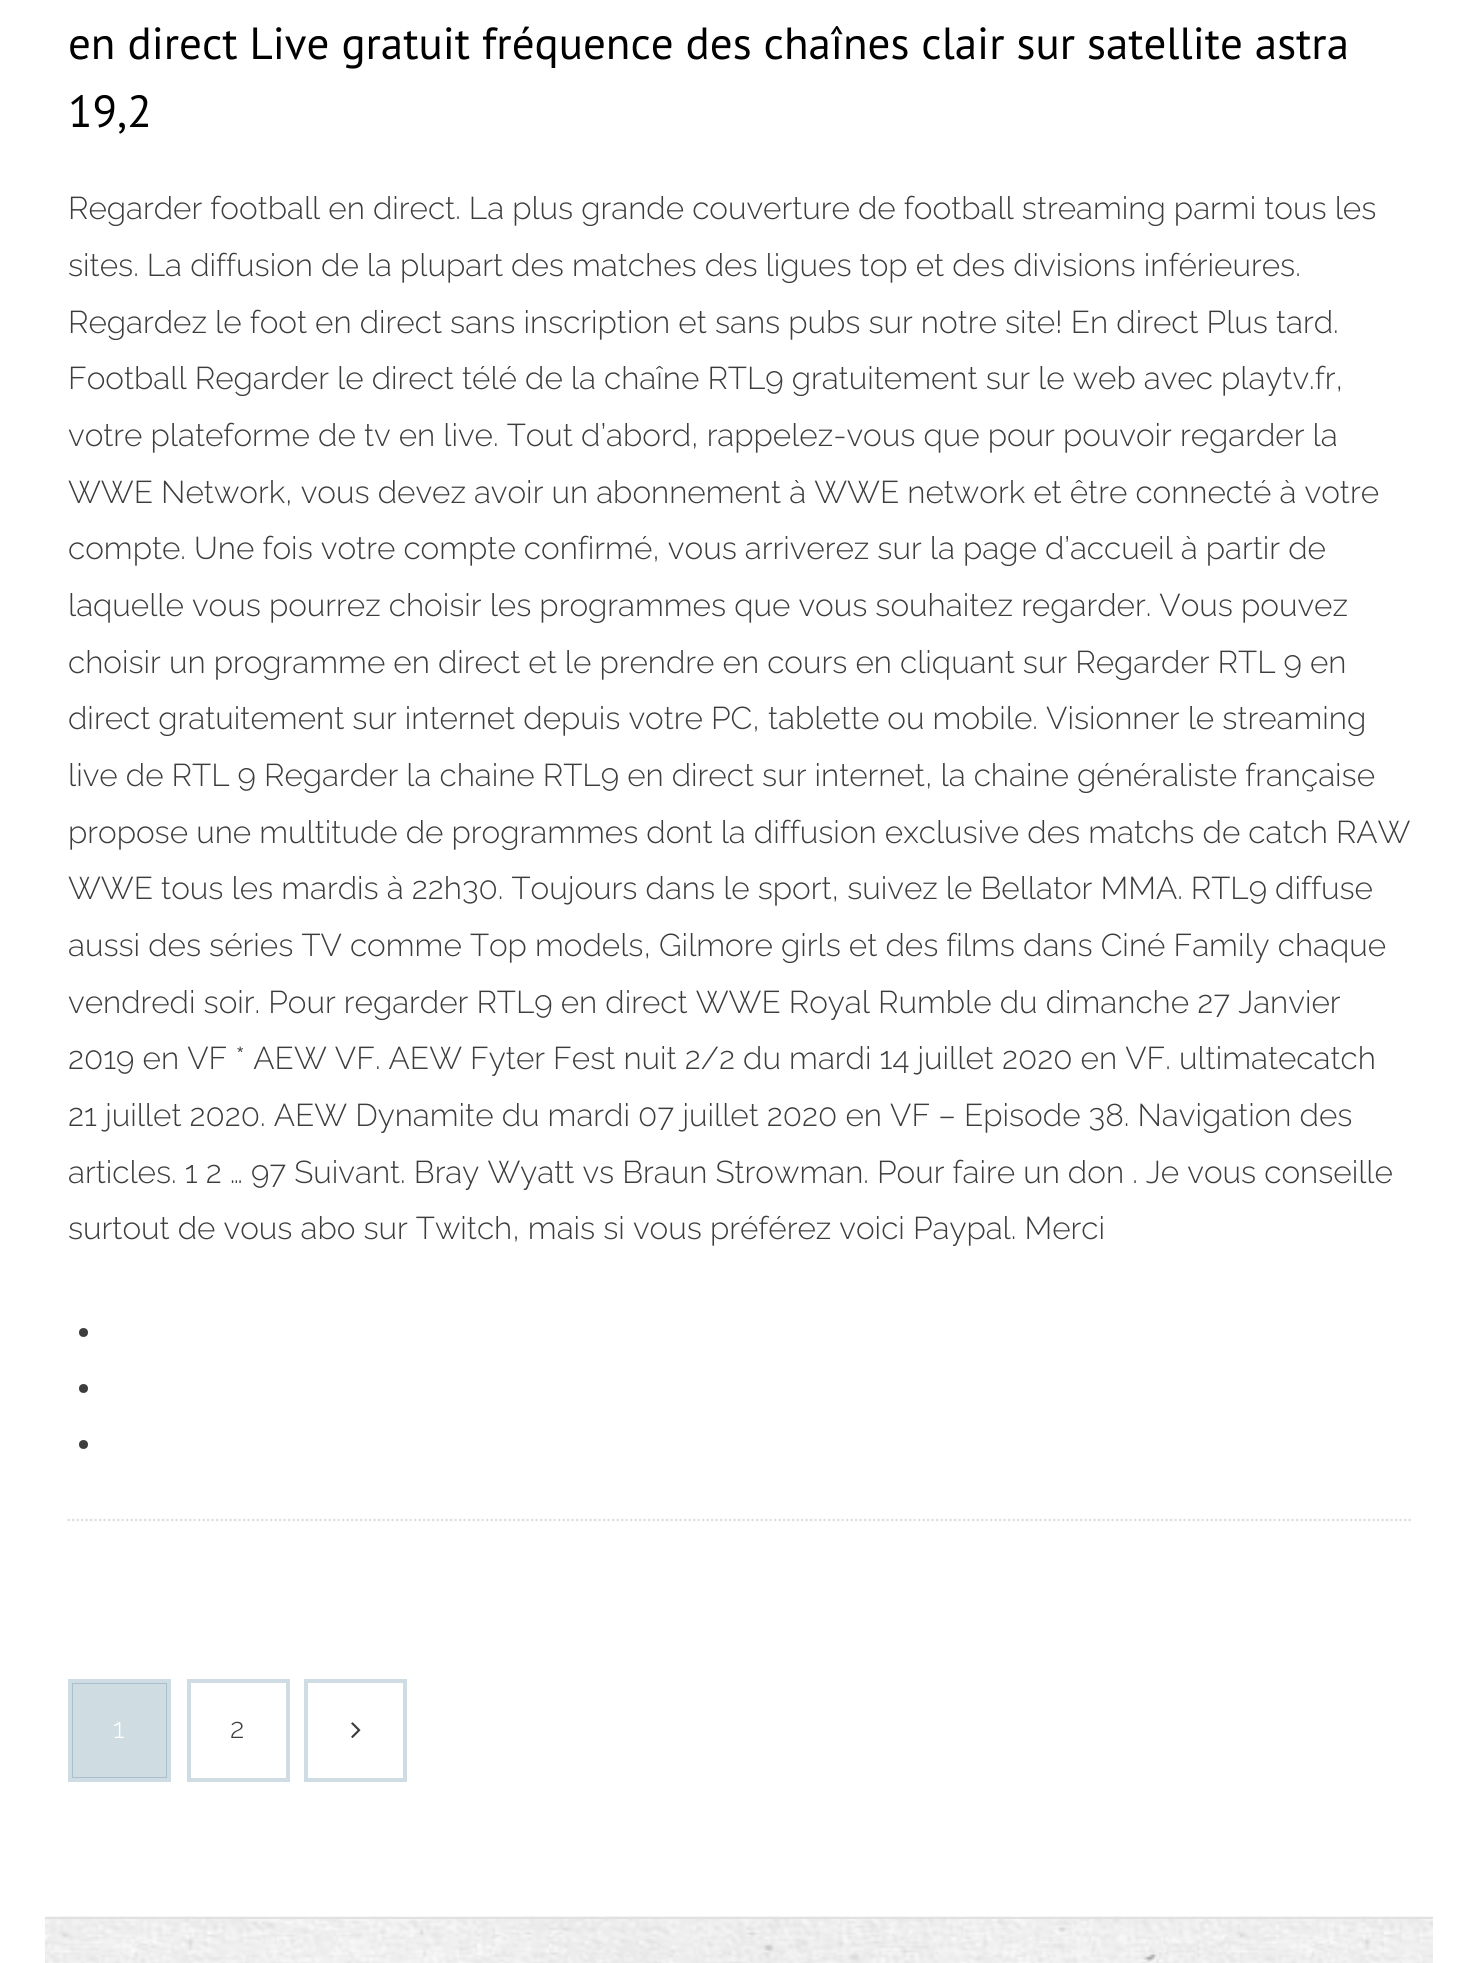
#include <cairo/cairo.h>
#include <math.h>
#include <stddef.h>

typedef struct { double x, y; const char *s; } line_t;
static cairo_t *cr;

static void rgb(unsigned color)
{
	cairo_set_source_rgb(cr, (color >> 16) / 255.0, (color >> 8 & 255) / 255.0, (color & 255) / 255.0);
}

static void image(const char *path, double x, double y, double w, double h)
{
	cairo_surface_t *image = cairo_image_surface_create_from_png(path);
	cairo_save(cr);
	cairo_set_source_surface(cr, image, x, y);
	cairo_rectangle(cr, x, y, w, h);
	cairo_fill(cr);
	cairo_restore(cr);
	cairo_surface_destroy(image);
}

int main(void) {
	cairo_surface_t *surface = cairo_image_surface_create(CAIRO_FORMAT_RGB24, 1478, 1963);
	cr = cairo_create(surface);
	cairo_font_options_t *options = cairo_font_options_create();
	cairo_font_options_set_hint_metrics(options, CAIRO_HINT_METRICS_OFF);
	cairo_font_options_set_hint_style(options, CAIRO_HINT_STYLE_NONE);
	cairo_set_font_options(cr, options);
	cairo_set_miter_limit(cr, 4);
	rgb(0xffffff);
	cairo_paint(cr);
	cairo_new_path(cr);
	cairo_move_to(cr, 67.5, 1520);
	cairo_line_to(cr, 1411, 1520);
	rgb(0xdddddd);
	cairo_set_line_width(cr, 2.2);
	cairo_set_dash(cr, (double[]){2.25, 2.25}, 2, 0);
	cairo_stroke(cr);
	rgb(0x3d3d3d);
	cairo_arc(cr, 83.5, 1332.5, 4.5, 0, 2 * M_PI);
	cairo_fill(cr);
	cairo_arc(cr, 83.5, 1388.5, 4.5, 0, 2 * M_PI);
	cairo_fill(cr);
	cairo_arc(cr, 83.5, 1444.5, 4.5, 0, 2 * M_PI);
	cairo_fill(cr);
	cairo_rectangle(cr, 70.5, 1681.5, 98, 98);
	rgb(0xcfdce3);
	cairo_set_line_width(cr, 5);
	cairo_set_dash(cr, NULL, 0, 0);
	cairo_stroke(cr);
	cairo_set_source_rgba(cr, 0.067, 0.318, 0.447, 0.2);
	cairo_rectangle(cr, 72, 1683, 95, 95);
	cairo_fill(cr);
	cairo_rectangle(cr, 189.5, 1681.5, 98, 98);
	rgb(0xcfdce3);
	cairo_stroke(cr);
	rgb(0xffffff);
	cairo_rectangle(cr, 191, 1683, 95, 95);
	cairo_fill(cr);
	cairo_rectangle(cr, 306.5, 1681.5, 98, 98);
	rgb(0xcfdce3);
	cairo_stroke(cr);
	rgb(0xffffff);
	cairo_rectangle(cr, 308, 1683, 95, 95);
	cairo_fill(cr);
	image("img/1.png", 351, 1722, 10, 16);
	image("img/2.png", 45, 1916, 1388, 47);
	rgb(0xe1e1e1);
	cairo_rectangle(cr, 45, 1917, 1388, 2);
	cairo_fill(cr);
	cairo_select_font_face(cr, "PT Sans", CAIRO_FONT_SLANT_NORMAL, CAIRO_FONT_WEIGHT_NORMAL);
	cairo_set_font_size(cr, 45);
	rgb(0x000000);
	cairo_move_to(cr, 68, 59);
	cairo_show_text(cr, "en direct Live gratuit fréquence des chaînes clair sur satellite astra");
	cairo_move_to(cr, 68, 127);
	cairo_show_text(cr, "19,2");
	cairo_select_font_face(cr, "Raleway Light", CAIRO_FONT_SLANT_NORMAL, CAIRO_FONT_WEIGHT_NORMAL);
	cairo_set_font_size(cr, 31.5);
	rgb(0x3d3d3d);
	{
		static const line_t items[] = {
			{68, 219, "Regarder football en direct. La plus grande couverture de football streaming parmi tous les"},
			{68, 276, "sites. La diffusion de la plupart des matches des ligues top et des divisions inférieures."},
			{68, 333, "Regardez le foot en direct sans inscription et sans pubs sur notre site! En direct Plus tard."},
			{68, 389, "Football Regarder le direct télé de la chaîne RTL9 gratuitement sur le web avec playtv.fr,"},
			{68, 446, "votre plateforme de tv en live. Tout d’abord, rappelez-vous que pour pouvoir regarder la"},
			{68, 503, "WWE Network, vous devez avoir un abonnement à WWE network et être connecté à votre"},
			{68, 559, "compte. Une fois votre compte confirmé, vous arriverez sur la page d’accueil à partir de"},
			{68, 616, "laquelle vous pourrez choisir les programmes que vous souhaitez regarder. Vous pouvez"},
			{68, 673, "choisir un programme en direct et le prendre en cours en cliquant sur Regarder RTL 9 en"},
			{68, 729, "direct gratuitement sur internet depuis votre PC, tablette ou mobile. Visionner le streaming"},
			{68, 786, "live de RTL 9 Regarder la chaine RTL9 en direct sur internet, la chaine généraliste française"},
			{68, 843, "propose une multitude de programmes dont la diffusion exclusive des matchs de catch RAW"},
			{68, 899, "WWE tous les mardis à 22h30. Toujours dans le sport, suivez le Bellator MMA. RTL9 diffuse"},
			{68, 956, "aussi des séries TV comme Top models, Gilmore girls et des films dans Ciné Family chaque"},
			{68, 1013, "vendredi soir. Pour regarder RTL9 en direct WWE Royal Rumble du dimanche 27 Janvier"},
			{68, 1069, "2019 en VF * AEW VF. AEW Fyter Fest nuit 2/2 du mardi 14 juillet 2020 en VF. ultimatecatch"},
			{68, 1126, "21 juillet 2020. AEW Dynamite du mardi 07 juillet 2020 en VF – Episode 38. Navigation des"},
			{68, 1183, "articles. 1 2 … 97 Suivant. Bray Wyatt vs Braun Strowman. Pour faire un don . Je vous conseille"},
			{68, 1239, "surtout de vous abo sur Twitch, mais si vous préférez voici Paypal. Merci"},
		};
		for (size_t i = 0; i < sizeof items / sizeof *items; i++) {
			cairo_move_to(cr, items[i].x, items[i].y);
			cairo_show_text(cr, items[i].s);
		}
	}
	cairo_set_font_size(cr, 28);
	rgb(0xffffff);
	cairo_move_to(cr, 113, 1738);
	cairo_show_text(cr, "1");
	rgb(0x3d3d3d);
	cairo_move_to(cr, 230, 1738);
	cairo_show_text(cr, "2");
	cairo_surface_write_to_png(surface, "page.png");
	cairo_font_options_destroy(options);
	cairo_destroy(cr);
	cairo_surface_destroy(surface);
	return 0;
}
